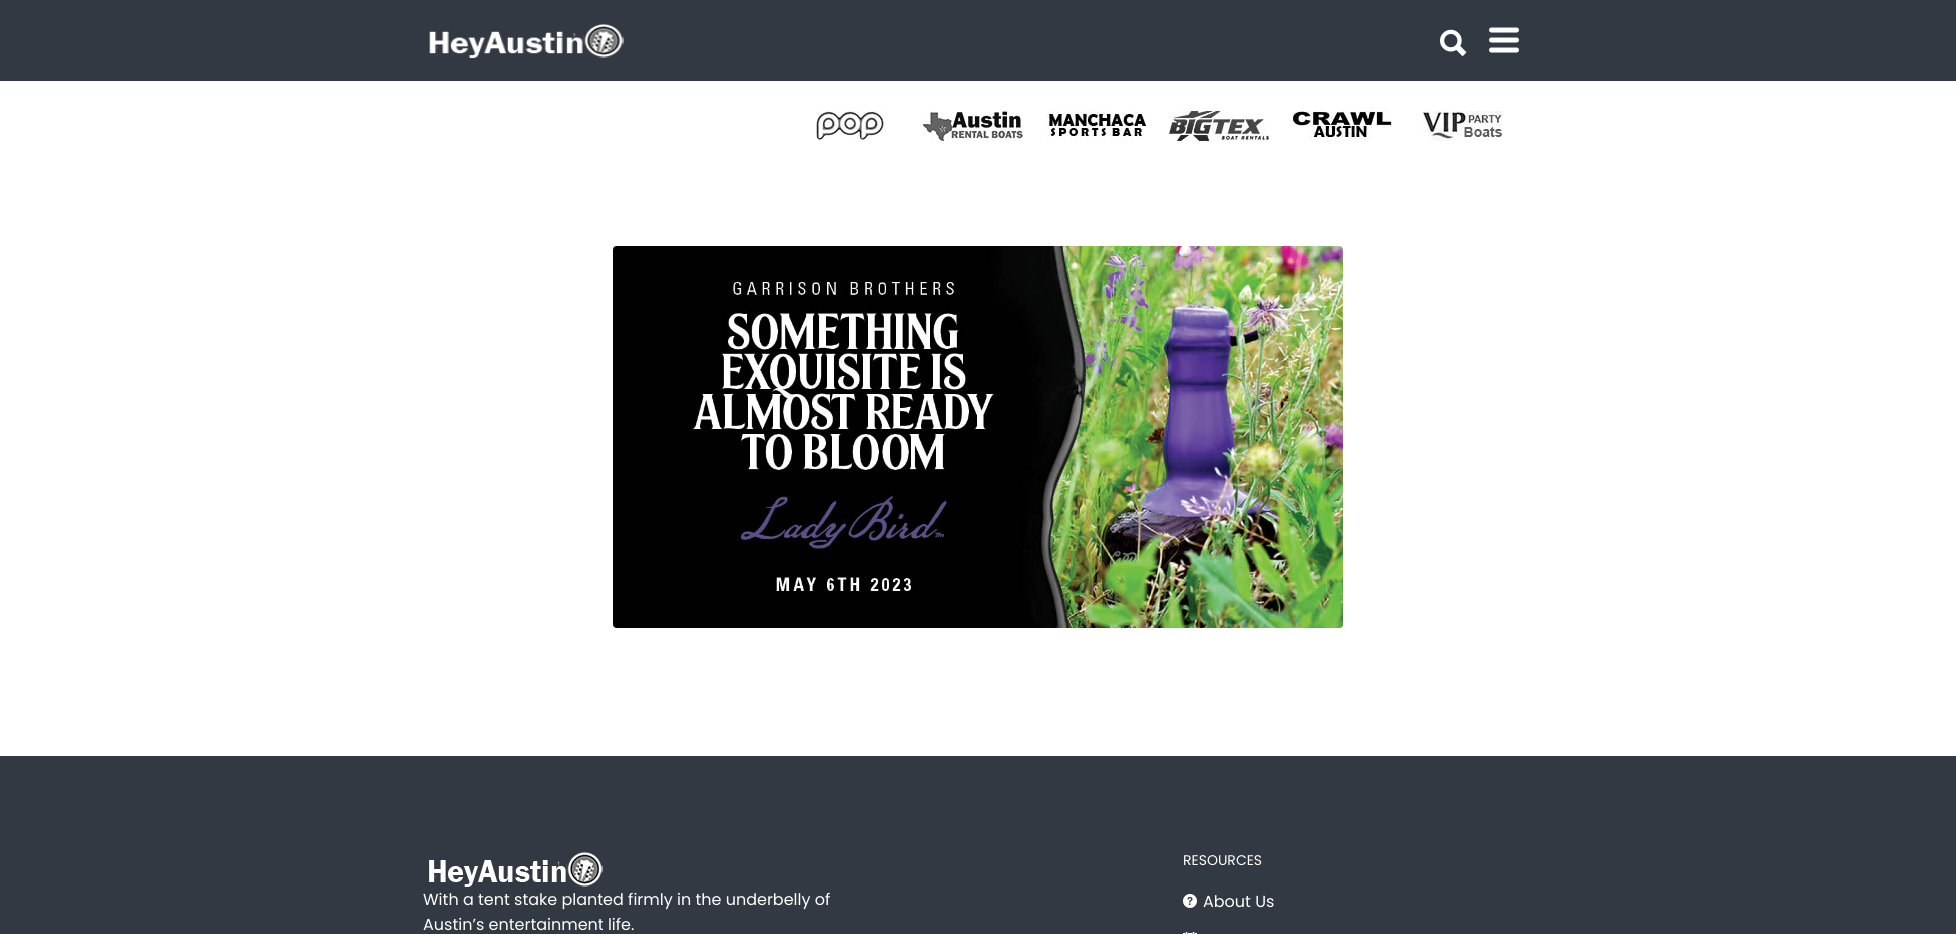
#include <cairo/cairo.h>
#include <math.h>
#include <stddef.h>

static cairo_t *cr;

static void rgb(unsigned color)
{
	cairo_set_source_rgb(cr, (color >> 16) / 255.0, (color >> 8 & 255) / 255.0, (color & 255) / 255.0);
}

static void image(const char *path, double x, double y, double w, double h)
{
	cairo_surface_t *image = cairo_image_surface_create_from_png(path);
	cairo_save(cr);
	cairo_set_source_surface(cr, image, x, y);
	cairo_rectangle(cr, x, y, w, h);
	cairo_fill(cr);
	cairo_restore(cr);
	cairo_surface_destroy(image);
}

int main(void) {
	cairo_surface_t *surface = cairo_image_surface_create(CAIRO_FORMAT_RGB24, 1956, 934);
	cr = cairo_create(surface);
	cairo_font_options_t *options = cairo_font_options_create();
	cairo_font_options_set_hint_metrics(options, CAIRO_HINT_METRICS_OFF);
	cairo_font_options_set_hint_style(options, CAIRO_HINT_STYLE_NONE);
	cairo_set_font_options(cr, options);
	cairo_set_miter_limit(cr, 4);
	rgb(0xffffff);
	cairo_paint(cr);
	rgb(0x333943);
	cairo_rectangle(cr, 0, 0, 1956, 81);
	cairo_fill(cr);
	image("img/1.png", 429, 24, 195, 34);
	image("img/2.png", 1440, 29, 27, 27);
	image("img/3.png", 1489, 27, 30, 26);
	image("img/4.png", 816, 111, 72, 30);
	image("img/5.png", 923, 111, 100, 30);
	image("img/6.png", 1046, 111, 100, 30);
	image("img/7.png", 1169, 111, 100, 30);
	image("img/8.png", 1292, 111, 100, 30);
	image("img/9.png", 1423, 111, 80, 30);
	image("img/10.png", 613, 246, 730, 382);
	rgb(0x333942);
	cairo_rectangle(cr, 0, 756, 1956, 178);
	cairo_fill(cr);
	image("img/11.png", 429, 852, 174, 35);
	image("img/12.png", 1183, 894, 14, 14);
	image("img/13.png", 1183, 932, 14, 2);
	cairo_select_font_face(cr, "Poppins", CAIRO_FONT_SLANT_NORMAL, CAIRO_FONT_WEIGHT_NORMAL);
	cairo_set_font_size(cr, 16);
	rgb(0xffffff);
	cairo_move_to(cr, 423, 905);
	cairo_show_text(cr, "With a tent stake planted firmly in the underbelly of");
	cairo_move_to(cr, 423, 930);
	cairo_show_text(cr, "Austin’s entertainment life.");
	cairo_set_font_size(cr, 14);
	cairo_move_to(cr, 1183, 865);
	cairo_show_text(cr, "RESOURCES");
	cairo_set_font_size(cr, 16);
	cairo_move_to(cr, 1203, 907);
	cairo_show_text(cr, "About Us");
	cairo_surface_write_to_png(surface, "page.png");
	cairo_font_options_destroy(options);
	cairo_destroy(cr);
	cairo_surface_destroy(surface);
	return 0;
}
